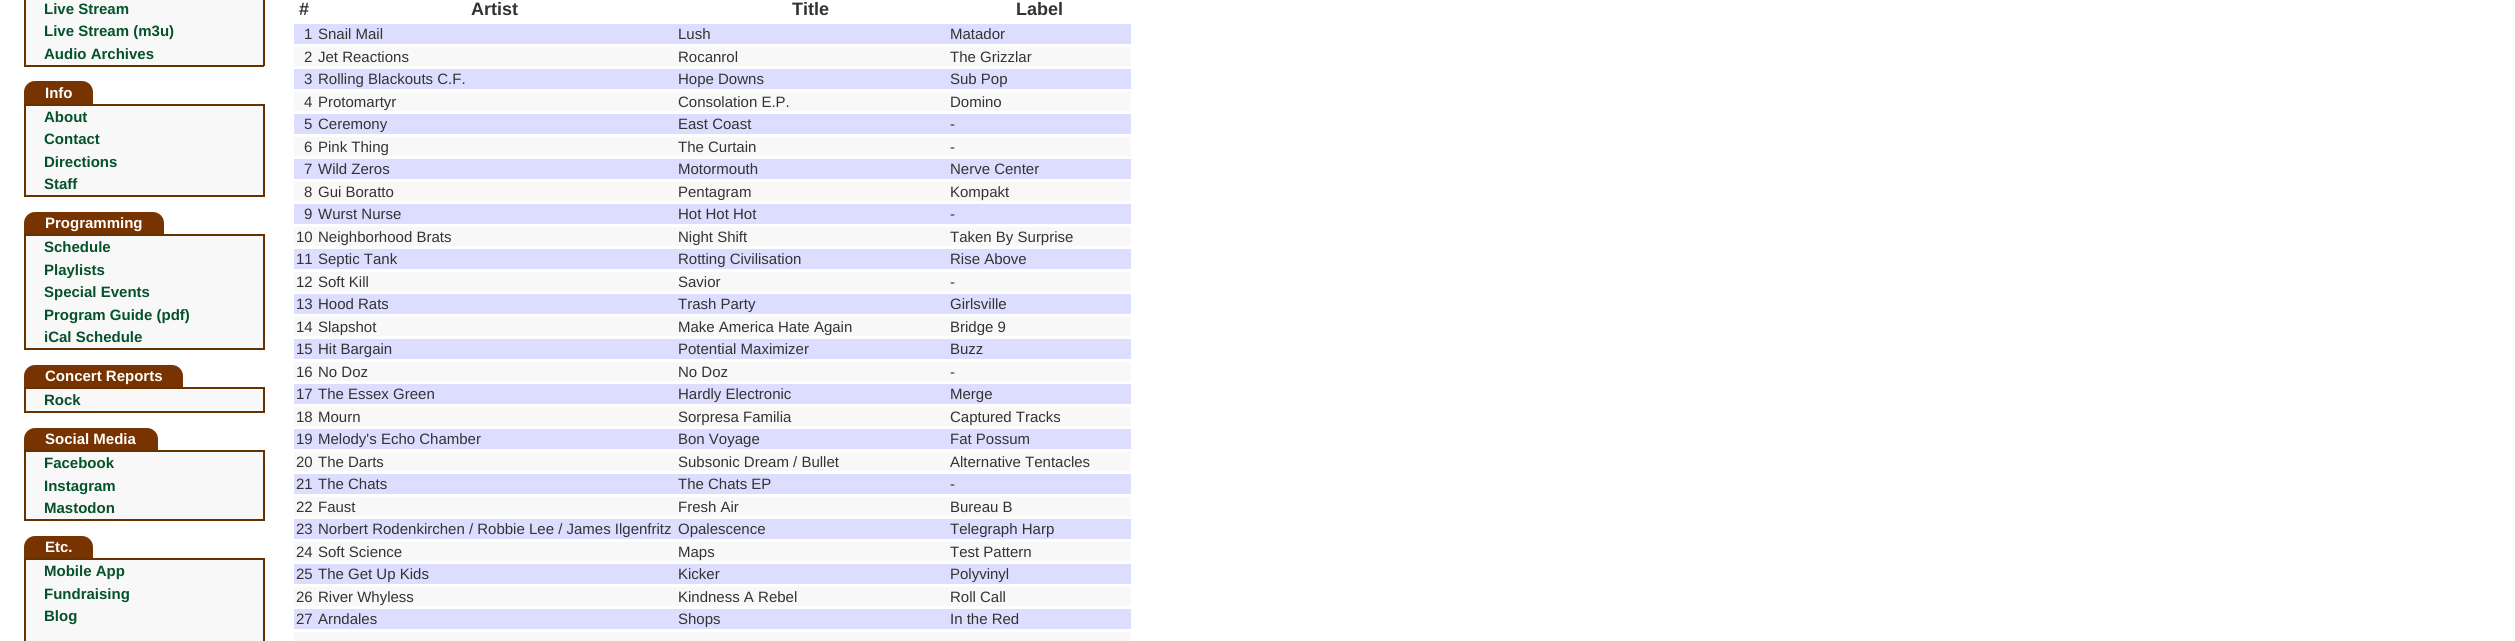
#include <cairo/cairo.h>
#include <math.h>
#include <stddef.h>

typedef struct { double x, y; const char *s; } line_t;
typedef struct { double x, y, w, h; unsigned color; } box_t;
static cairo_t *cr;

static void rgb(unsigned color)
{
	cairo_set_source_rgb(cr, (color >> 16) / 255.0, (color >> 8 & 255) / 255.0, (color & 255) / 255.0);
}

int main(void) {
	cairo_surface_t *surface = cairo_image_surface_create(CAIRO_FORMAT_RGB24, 2515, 641);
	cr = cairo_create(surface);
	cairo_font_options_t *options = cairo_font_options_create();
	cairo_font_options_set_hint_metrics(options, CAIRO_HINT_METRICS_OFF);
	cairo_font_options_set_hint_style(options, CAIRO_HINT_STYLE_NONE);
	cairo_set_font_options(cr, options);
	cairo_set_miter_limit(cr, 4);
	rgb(0xffffff);
	cairo_paint(cr);
	{
		static const box_t items[] = {
			{263, 0, 2, 66, 0x663300},
			{24, 65, 240, 2, 0x663300},
			{24, 0, 2, 66, 0x663300},
			{26, 0, 237, 65, 0xf8f8f8},
		};
		for (size_t i = 0; i < sizeof items / sizeof *items; i++) {
			rgb(items[i].color);
			cairo_rectangle(cr, items[i].x, items[i].y, items[i].w, items[i].h);
			cairo_fill(cr);
		}
	}
	rgb(0x773300);
	cairo_new_path(cr);
	cairo_move_to(cr, 35, 81);
	cairo_line_to(cr, 82, 81);
	cairo_curve_to(cr, 88, 81, 93, 86, 93, 92);
	cairo_line_to(cr, 93, 104);
	cairo_line_to(cr, 24, 104);
	cairo_line_to(cr, 24, 92);
	cairo_curve_to(cr, 24, 86, 29, 81, 35, 81);
	cairo_close_path(cr);
	cairo_fill(cr);
	{
		static const box_t items[] = {
			{24, 104, 240, 2, 0x663300},
			{263, 104, 2, 93, 0x663300},
			{24, 195, 240, 2, 0x663300},
			{24, 104, 2, 93, 0x663300},
			{26, 106, 237, 89, 0xf8f8f8},
		};
		for (size_t i = 0; i < sizeof items / sizeof *items; i++) {
			rgb(items[i].color);
			cairo_rectangle(cr, items[i].x, items[i].y, items[i].w, items[i].h);
			cairo_fill(cr);
		}
	}
	rgb(0x773300);
	cairo_new_path(cr);
	cairo_move_to(cr, 35, 212);
	cairo_line_to(cr, 153, 212);
	cairo_curve_to(cr, 159, 212, 164, 217, 164, 223);
	cairo_line_to(cr, 164, 234);
	cairo_line_to(cr, 24, 234);
	cairo_line_to(cr, 24, 223);
	cairo_curve_to(cr, 24, 217, 29, 212, 35, 212);
	cairo_close_path(cr);
	cairo_fill(cr);
	{
		static const box_t items[] = {
			{24, 234, 240, 2, 0x663300},
			{263, 234, 2, 116, 0x663300},
			{24, 348, 240, 2, 0x663300},
			{24, 234, 2, 116, 0x663300},
			{26, 236, 237, 112, 0xf8f8f8},
		};
		for (size_t i = 0; i < sizeof items / sizeof *items; i++) {
			rgb(items[i].color);
			cairo_rectangle(cr, items[i].x, items[i].y, items[i].w, items[i].h);
			cairo_fill(cr);
		}
	}
	rgb(0x773300);
	cairo_new_path(cr);
	cairo_move_to(cr, 35, 365);
	cairo_line_to(cr, 172, 365);
	cairo_curve_to(cr, 178, 365, 183, 370, 183, 376);
	cairo_line_to(cr, 183, 387);
	cairo_line_to(cr, 24, 387);
	cairo_line_to(cr, 24, 376);
	cairo_curve_to(cr, 24, 370, 29, 365, 35, 365);
	cairo_close_path(cr);
	cairo_fill(cr);
	{
		static const box_t items[] = {
			{24, 387, 240, 2, 0x663300},
			{263, 387, 2, 26, 0x663300},
			{24, 411, 240, 2, 0x663300},
			{24, 387, 2, 26, 0x663300},
			{26, 389, 237, 22, 0xf8f8f8},
		};
		for (size_t i = 0; i < sizeof items / sizeof *items; i++) {
			rgb(items[i].color);
			cairo_rectangle(cr, items[i].x, items[i].y, items[i].w, items[i].h);
			cairo_fill(cr);
		}
	}
	rgb(0x773300);
	cairo_new_path(cr);
	cairo_move_to(cr, 35, 428);
	cairo_line_to(cr, 147, 428);
	cairo_curve_to(cr, 153, 428, 158, 433, 158, 439);
	cairo_line_to(cr, 158, 450);
	cairo_line_to(cr, 24, 450);
	cairo_line_to(cr, 24, 439);
	cairo_curve_to(cr, 24, 433, 29, 428, 35, 428);
	cairo_close_path(cr);
	cairo_fill(cr);
	{
		static const box_t items[] = {
			{24, 450, 240, 2, 0x663300},
			{263, 450, 2, 71, 0x663300},
			{24, 519, 240, 2, 0x663300},
			{24, 450, 2, 71, 0x663300},
			{26, 452, 237, 67, 0xf8f8f8},
		};
		for (size_t i = 0; i < sizeof items / sizeof *items; i++) {
			rgb(items[i].color);
			cairo_rectangle(cr, items[i].x, items[i].y, items[i].w, items[i].h);
			cairo_fill(cr);
		}
	}
	rgb(0x773300);
	cairo_new_path(cr);
	cairo_move_to(cr, 35, 536);
	cairo_line_to(cr, 82, 536);
	cairo_curve_to(cr, 88, 536, 93, 541, 93, 547);
	cairo_line_to(cr, 93, 558);
	cairo_line_to(cr, 24, 558);
	cairo_line_to(cr, 24, 547);
	cairo_curve_to(cr, 24, 541, 29, 536, 35, 536);
	cairo_close_path(cr);
	cairo_fill(cr);
	{
		static const box_t items[] = {
			{24, 558, 240, 2, 0x663300},
			{263, 558, 2, 83, 0x663300},
			{24, 558, 2, 83, 0x663300},
			{26, 560, 237, 81, 0xf8f8f8},
			{294, 24, 837, 20, 0xddddff},
			{294, 47, 837, 19, 0xf8f8f8},
			{294, 69, 837, 20, 0xddddff},
			{294, 92, 837, 19, 0xf8f8f8},
			{294, 114, 837, 20, 0xddddff},
			{294, 137, 837, 19, 0xf8f8f8},
			{294, 159, 837, 20, 0xddddff},
			{294, 182, 837, 19, 0xf8f8f8},
			{294, 204, 837, 20, 0xddddff},
			{294, 227, 837, 19, 0xf8f8f8},
			{294, 249, 837, 20, 0xddddff},
			{294, 272, 837, 19, 0xf8f8f8},
			{294, 294, 837, 20, 0xddddff},
			{294, 317, 837, 19, 0xf8f8f8},
			{294, 339, 837, 20, 0xddddff},
			{294, 362, 837, 19, 0xf8f8f8},
			{294, 384, 837, 20, 0xddddff},
			{294, 407, 837, 19, 0xf8f8f8},
			{294, 429, 837, 20, 0xddddff},
			{294, 452, 837, 19, 0xf8f8f8},
			{294, 474, 837, 20, 0xddddff},
			{294, 497, 837, 19, 0xf8f8f8},
			{294, 519, 837, 20, 0xddddff},
			{294, 542, 837, 19, 0xf8f8f8},
			{294, 564, 837, 20, 0xddddff},
			{294, 587, 837, 19, 0xf8f8f8},
			{294, 609, 837, 20, 0xddddff},
			{294, 632, 837, 9, 0xf8f8f8},
		};
		for (size_t i = 0; i < sizeof items / sizeof *items; i++) {
			rgb(items[i].color);
			cairo_rectangle(cr, items[i].x, items[i].y, items[i].w, items[i].h);
			cairo_fill(cr);
		}
	}
	cairo_select_font_face(cr, "Liberation Sans", CAIRO_FONT_SLANT_NORMAL, CAIRO_FONT_WEIGHT_BOLD);
	cairo_set_font_size(cr, 15);
	rgb(0x05522a);
	{
		static const line_t items[] = {
			{44, 14, "Live Stream"},
			{44, 36, "Live Stream (m3u)"},
			{44, 59, "Audio Archives"},
		};
		for (size_t i = 0; i < sizeof items / sizeof *items; i++) {
			cairo_move_to(cr, items[i].x, items[i].y);
			cairo_show_text(cr, items[i].s);
		}
	}
	rgb(0xffffff);
	cairo_move_to(cr, 45, 98);
	cairo_show_text(cr, "Info");
	rgb(0x05522a);
	{
		static const line_t items[] = {
			{44, 122, "About"},
			{44, 144, "Contact"},
			{44, 167, "Directions"},
			{44, 189, "Staff"},
		};
		for (size_t i = 0; i < sizeof items / sizeof *items; i++) {
			cairo_move_to(cr, items[i].x, items[i].y);
			cairo_show_text(cr, items[i].s);
		}
	}
	rgb(0xffffff);
	cairo_move_to(cr, 45, 228);
	cairo_show_text(cr, "Programming");
	rgb(0x05522a);
	{
		static const line_t items[] = {
			{44, 252, "Schedule"},
			{44, 275, "Playlists"},
			{44, 297, "Special Events"},
			{44, 320, "Program Guide (pdf)"},
			{44, 342, "iCal Schedule"},
		};
		for (size_t i = 0; i < sizeof items / sizeof *items; i++) {
			cairo_move_to(cr, items[i].x, items[i].y);
			cairo_show_text(cr, items[i].s);
		}
	}
	rgb(0xffffff);
	cairo_move_to(cr, 45, 381);
	cairo_show_text(cr, "Concert Reports");
	rgb(0x05522a);
	cairo_move_to(cr, 44, 405);
	cairo_show_text(cr, "Rock");
	rgb(0xffffff);
	cairo_move_to(cr, 45, 444);
	cairo_show_text(cr, "Social Media");
	rgb(0x05522a);
	{
		static const line_t items[] = {
			{44, 468, "Facebook"},
			{44, 491, "Instagram"},
			{44, 513, "Mastodon"},
		};
		for (size_t i = 0; i < sizeof items / sizeof *items; i++) {
			cairo_move_to(cr, items[i].x, items[i].y);
			cairo_show_text(cr, items[i].s);
		}
	}
	rgb(0xffffff);
	cairo_move_to(cr, 45, 552);
	cairo_show_text(cr, "Etc.");
	rgb(0x05522a);
	{
		static const line_t items[] = {
			{44, 576, "Mobile App"},
			{44, 599, "Fundraising"},
			{44, 621, "Blog"},
		};
		for (size_t i = 0; i < sizeof items / sizeof *items; i++) {
			cairo_move_to(cr, items[i].x, items[i].y);
			cairo_show_text(cr, items[i].s);
		}
	}
	cairo_set_font_size(cr, 18);
	rgb(0x333333);
	{
		static const line_t items[] = {
			{299, 15, "#"},
			{471, 15, "Artist"},
			{792, 15, "Title"},
			{1016, 15, "Label"},
		};
		for (size_t i = 0; i < sizeof items / sizeof *items; i++) {
			cairo_move_to(cr, items[i].x, items[i].y);
			cairo_show_text(cr, items[i].s);
		}
	}
	cairo_select_font_face(cr, "Liberation Sans", CAIRO_FONT_SLANT_NORMAL, CAIRO_FONT_WEIGHT_NORMAL);
	cairo_set_font_size(cr, 15);
	{
		static const line_t items[] = {
			{304, 39, "1"},
			{318, 39, "Snail Mail"},
			{678, 39, "Lush"},
			{950, 39, "Matador"},
			{304, 62, "2"},
			{318, 62, "Jet Reactions"},
			{678, 62, "Rocanrol"},
			{950, 62, "The Grizzlar"},
			{304, 84, "3"},
			{318, 84, "Rolling Blackouts C.F."},
			{678, 84, "Hope Downs"},
			{950, 84, "Sub Pop"},
			{304, 107, "4"},
			{318, 107, "Protomartyr"},
			{678, 107, "Consolation E.P."},
			{950, 107, "Domino"},
			{304, 129, "5"},
			{318, 129, "Ceremony"},
			{678, 129, "East Coast"},
			{950, 129, "-"},
			{304, 152, "6"},
			{318, 152, "Pink Thing"},
			{678, 152, "The Curtain"},
			{950, 152, "-"},
			{304, 174, "7"},
			{318, 174, "Wild Zeros"},
			{678, 174, "Motormouth"},
			{950, 174, "Nerve Center"},
			{304, 197, "8"},
			{318, 197, "Gui Boratto"},
			{678, 197, "Pentagram"},
			{950, 197, "Kompakt"},
			{304, 219, "9"},
			{318, 219, "Wurst Nurse"},
			{678, 219, "Hot Hot Hot"},
			{950, 219, "-"},
			{296, 242, "10"},
			{318, 242, "Neighborhood Brats"},
			{678, 242, "Night Shift"},
			{950, 242, "Taken By Surprise"},
			{296, 264, "11"},
			{318, 264, "Septic Tank"},
			{678, 264, "Rotting Civilisation"},
			{950, 264, "Rise Above"},
			{296, 287, "12"},
			{318, 287, "Soft Kill"},
			{678, 287, "Savior"},
			{950, 287, "-"},
			{296, 309, "13"},
			{318, 309, "Hood Rats"},
			{678, 309, "Trash Party"},
			{950, 309, "Girlsville"},
			{296, 332, "14"},
			{318, 332, "Slapshot"},
			{678, 332, "Make America Hate Again"},
			{950, 332, "Bridge 9"},
			{296, 354, "15"},
			{318, 354, "Hit Bargain"},
			{678, 354, "Potential Maximizer"},
			{950, 354, "Buzz"},
			{296, 377, "16"},
			{318, 377, "No Doz"},
			{678, 377, "No Doz"},
			{950, 377, "-"},
			{296, 399, "17"},
			{318, 399, "The Essex Green"},
			{678, 399, "Hardly Electronic"},
			{950, 399, "Merge"},
			{296, 422, "18"},
			{318, 422, "Mourn"},
			{678, 422, "Sorpresa Familia"},
			{950, 422, "Captured Tracks"},
			{296, 444, "19"},
			{318, 444, "Melody's Echo Chamber"},
			{678, 444, "Bon Voyage"},
			{950, 444, "Fat Possum"},
			{296, 467, "20"},
			{318, 467, "The Darts"},
			{678, 467, "Subsonic Dream / Bullet"},
			{950, 467, "Alternative Tentacles"},
			{296, 489, "21"},
			{318, 489, "The Chats"},
			{678, 489, "The Chats EP"},
			{950, 489, "-"},
			{296, 512, "22"},
			{318, 512, "Faust"},
			{678, 512, "Fresh Air"},
			{950, 512, "Bureau B"},
			{296, 534, "23"},
			{318, 534, "Norbert Rodenkirchen / Robbie Lee / James Ilgenfritz"},
			{678, 534, "Opalescence"},
			{950, 534, "Telegraph Harp"},
			{296, 557, "24"},
			{318, 557, "Soft Science"},
			{678, 557, "Maps"},
			{950, 557, "Test Pattern"},
			{296, 579, "25"},
			{318, 579, "The Get Up Kids"},
			{678, 579, "Kicker"},
			{950, 579, "Polyvinyl"},
			{296, 602, "26"},
			{318, 602, "River Whyless"},
			{678, 602, "Kindness A Rebel"},
			{950, 602, "Roll Call"},
			{296, 624, "27"},
			{318, 624, "Arndales"},
			{678, 624, "Shops"},
			{950, 624, "In the Red"},
		};
		for (size_t i = 0; i < sizeof items / sizeof *items; i++) {
			cairo_move_to(cr, items[i].x, items[i].y);
			cairo_show_text(cr, items[i].s);
		}
	}
	cairo_surface_write_to_png(surface, "page.png");
	cairo_font_options_destroy(options);
	cairo_destroy(cr);
	cairo_surface_destroy(surface);
	return 0;
}
